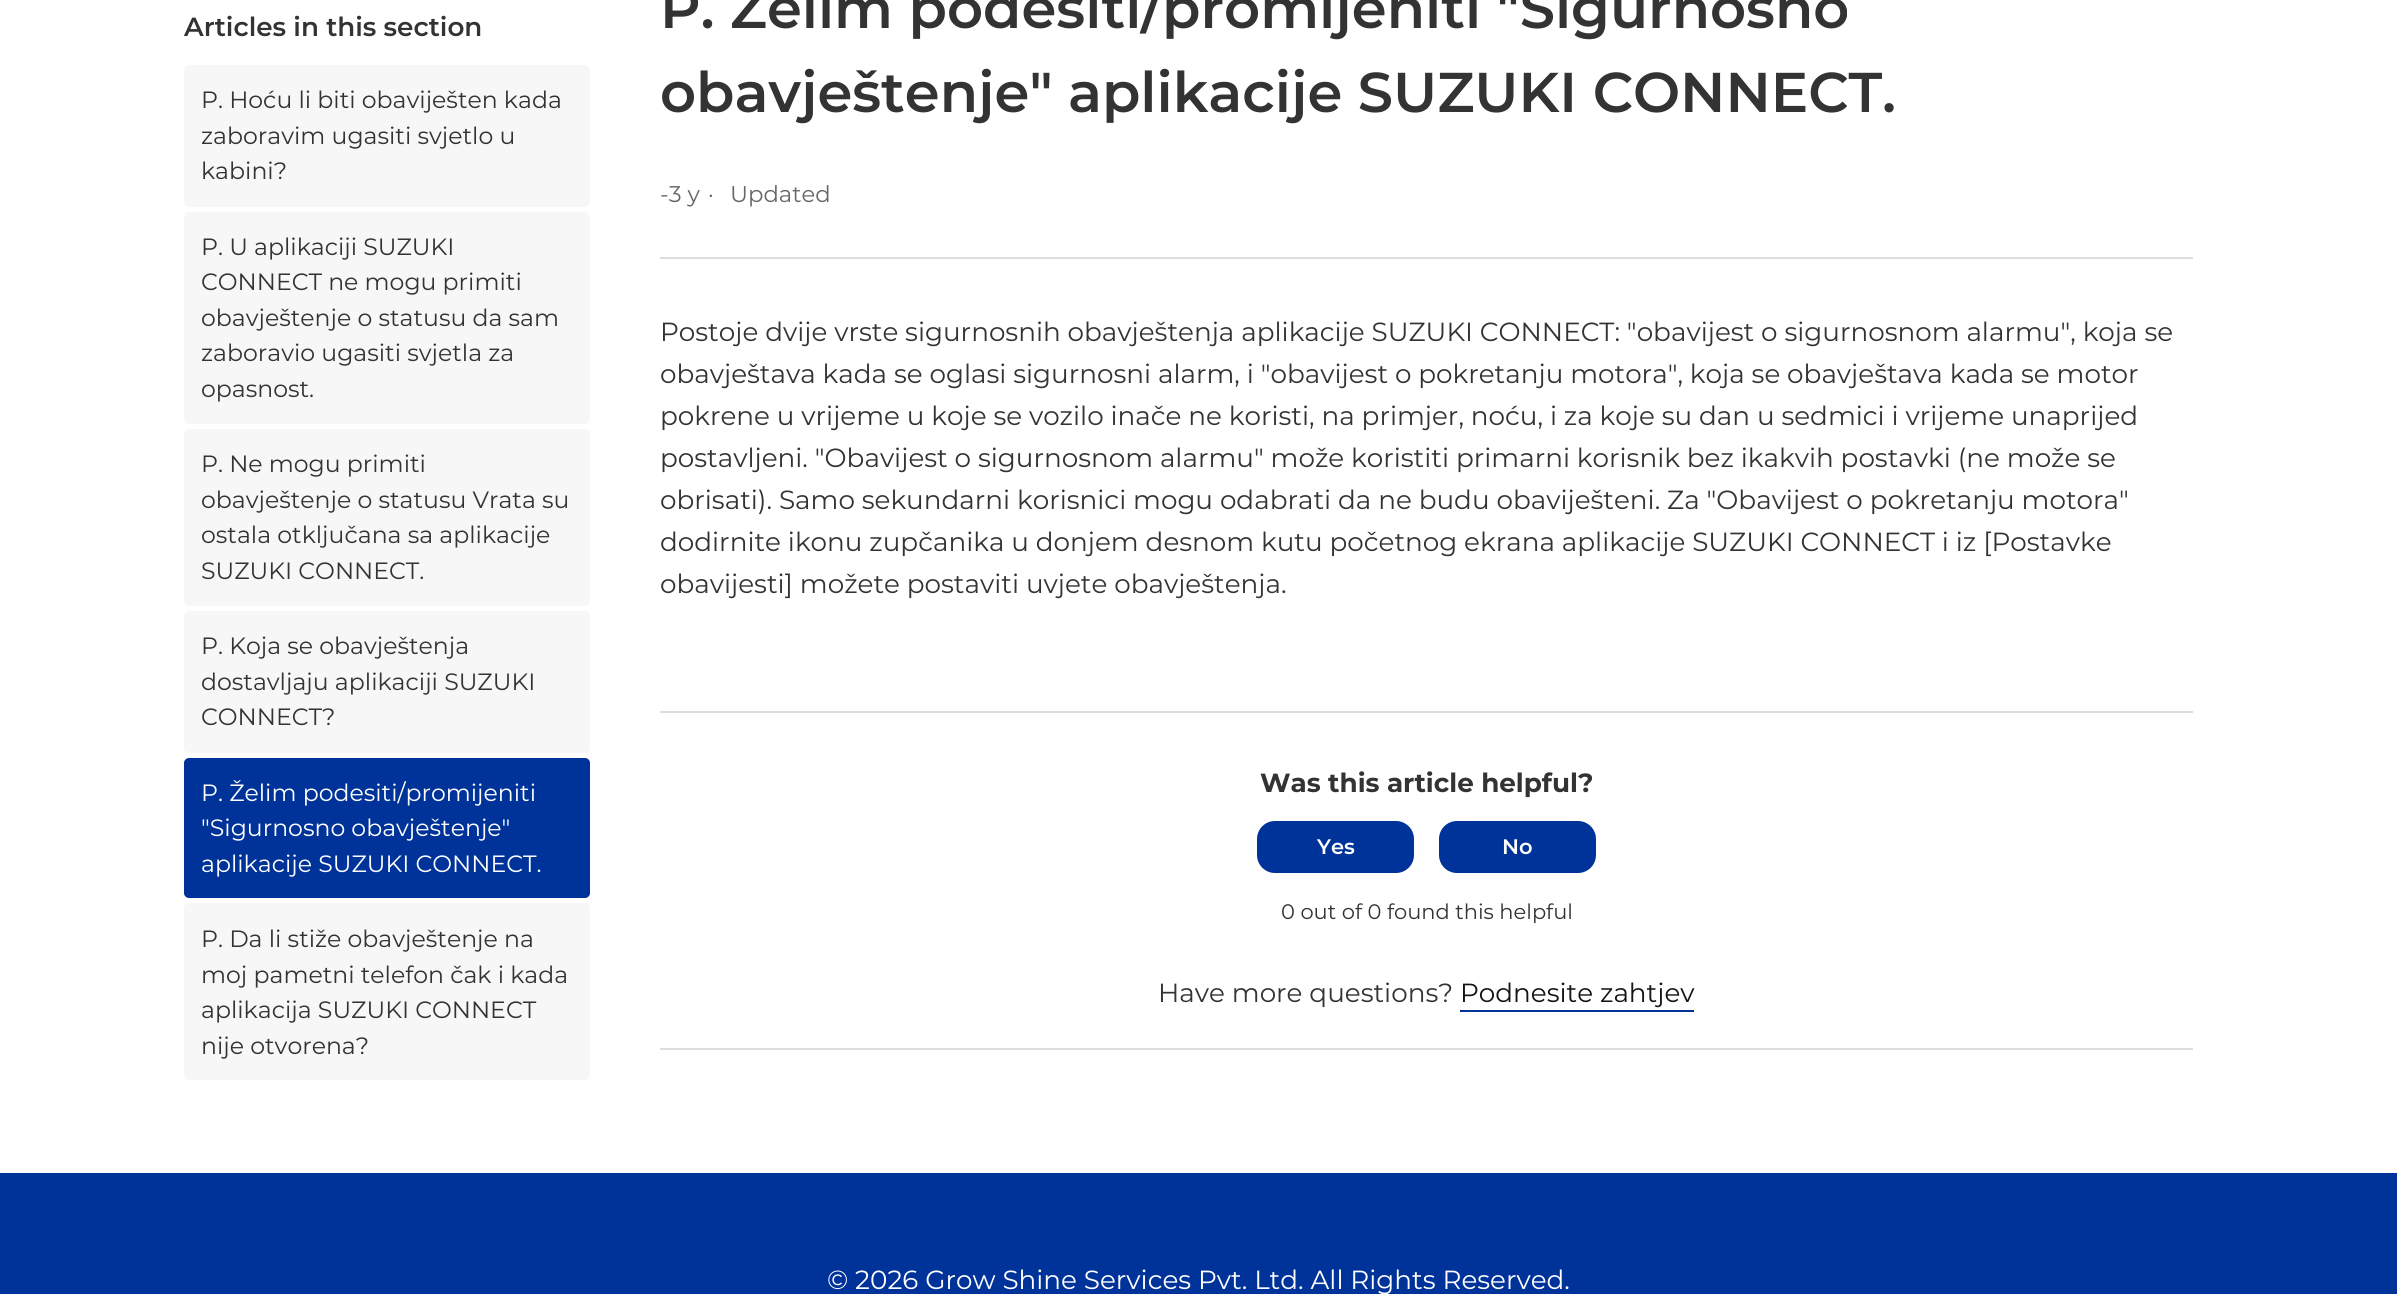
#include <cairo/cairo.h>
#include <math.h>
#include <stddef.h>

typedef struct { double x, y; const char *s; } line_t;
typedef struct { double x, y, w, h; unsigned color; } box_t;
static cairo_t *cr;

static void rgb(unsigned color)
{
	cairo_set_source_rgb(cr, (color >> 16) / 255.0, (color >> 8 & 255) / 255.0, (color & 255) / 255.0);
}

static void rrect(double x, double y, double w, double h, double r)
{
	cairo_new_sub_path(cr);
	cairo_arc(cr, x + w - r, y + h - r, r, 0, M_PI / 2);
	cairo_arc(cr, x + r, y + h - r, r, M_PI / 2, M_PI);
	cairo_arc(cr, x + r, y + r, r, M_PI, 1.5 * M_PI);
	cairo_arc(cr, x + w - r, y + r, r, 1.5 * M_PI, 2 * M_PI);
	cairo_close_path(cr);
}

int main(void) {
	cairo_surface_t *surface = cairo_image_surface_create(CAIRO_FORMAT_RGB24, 2397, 1294);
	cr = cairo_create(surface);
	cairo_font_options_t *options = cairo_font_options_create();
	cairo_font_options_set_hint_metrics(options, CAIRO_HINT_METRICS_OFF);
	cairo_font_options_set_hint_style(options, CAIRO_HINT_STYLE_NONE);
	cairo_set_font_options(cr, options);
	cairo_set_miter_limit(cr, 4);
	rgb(0xffffff);
	cairo_paint(cr);
	rgb(0xf7f7f7);
	rrect(184, 65, 406, 142, 5);
	cairo_fill(cr);
	rrect(184, 212, 406, 212, 5);
	cairo_fill(cr);
	rrect(184, 429, 406, 177, 5);
	cairo_fill(cr);
	rrect(184, 611, 406, 142, 5);
	cairo_fill(cr);
	rgb(0x003399);
	rrect(184, 758, 406, 140, 5);
	cairo_fill(cr);
	rgb(0xf7f7f7);
	rrect(184, 903, 406, 177, 5);
	cairo_fill(cr);
	rgb(0xdddddd);
	cairo_rectangle(cr, 660, 257, 1533, 2);
	cairo_fill(cr);
	cairo_rectangle(cr, 660, 711, 1533, 2);
	cairo_fill(cr);
	rgb(0x003399);
	rrect(1258, 822, 155, 50, 17);
	cairo_fill_preserve(cr);
	cairo_stroke(cr);
	rrect(1440, 822, 155, 50, 17);
	cairo_fill_preserve(cr);
	cairo_stroke(cr);
	{
		static const box_t items[] = {
			{1460, 1010, 234, 2, 0x003399},
			{660, 1048, 1533, 2, 0xdddddd},
			{0, 1173, 2397, 121, 0x003399},
		};
		for (size_t i = 0; i < sizeof items / sizeof *items; i++) {
			rgb(items[i].color);
			cairo_rectangle(cr, items[i].x, items[i].y, items[i].w, items[i].h);
			cairo_fill(cr);
		}
	}
	cairo_select_font_face(cr, "Montserrat SemiBold", CAIRO_FONT_SLANT_NORMAL, CAIRO_FONT_WEIGHT_NORMAL);
	cairo_set_font_size(cr, 26.25);
	rgb(0x333333);
	cairo_move_to(cr, 184, 36);
	cairo_show_text(cr, "Articles in this section");
	cairo_select_font_face(cr, "Montserrat", CAIRO_FONT_SLANT_NORMAL, CAIRO_FONT_WEIGHT_NORMAL);
	cairo_set_font_size(cr, 23.6);
	{
		static const line_t items[] = {
			{201, 108, "P. Hoću li biti obaviješten kada"},
			{201, 144, "zaboravim ugasiti svjetlo u"},
			{201, 179, "kabini?"},
			{201, 255, "P. U aplikaciji SUZUKI"},
			{201, 290, "CONNECT ne mogu primiti"},
			{201, 326, "obavještenje o statusu da sam"},
			{201, 361, "zaboravio ugasiti svjetla za"},
			{201, 397, "opasnost."},
			{201, 472, "P. Ne mogu primiti"},
			{201, 508, "obavještenje o statusu Vrata su"},
			{201, 543, "ostala otključana sa aplikacije"},
			{201, 579, "SUZUKI CONNECT."},
			{201, 654, "P. Koja se obavještenja"},
			{201, 690, "dostavljaju aplikaciji SUZUKI"},
			{201, 725, "CONNECT?"},
		};
		for (size_t i = 0; i < sizeof items / sizeof *items; i++) {
			cairo_move_to(cr, items[i].x, items[i].y);
			cairo_show_text(cr, items[i].s);
		}
	}
	rgb(0xffffff);
	{
		static const line_t items[] = {
			{201, 801, "P. Želim podesiti/promijeniti"},
			{201, 836, "\"Sigurnosno obavještenje\""},
			{201, 872, "aplikacije SUZUKI CONNECT."},
		};
		for (size_t i = 0; i < sizeof items / sizeof *items; i++) {
			cairo_move_to(cr, items[i].x, items[i].y);
			cairo_show_text(cr, items[i].s);
		}
	}
	rgb(0x333333);
	{
		static const line_t items[] = {
			{201, 947, "P. Da li stiže obavještenje na"},
			{201, 983, "moj pametni telefon čak i kada"},
			{201, 1018, "aplikacija SUZUKI CONNECT"},
			{201, 1054, "nije otvorena?"},
		};
		for (size_t i = 0; i < sizeof items / sizeof *items; i++) {
			cairo_move_to(cr, items[i].x, items[i].y);
			cairo_show_text(cr, items[i].s);
		}
	}
	cairo_select_font_face(cr, "Montserrat SemiBold", CAIRO_FONT_SLANT_NORMAL, CAIRO_FONT_WEIGHT_NORMAL);
	cairo_set_font_size(cr, 56);
	cairo_move_to(cr, 660, 28);
	cairo_show_text(cr, "P. Želim podesiti/promijeniti \"Sigurnosno");
	cairo_move_to(cr, 660, 112);
	cairo_show_text(cr, "obavještenje\" aplikacije SUZUKI CONNECT.");
	cairo_select_font_face(cr, "Montserrat", CAIRO_FONT_SLANT_NORMAL, CAIRO_FONT_WEIGHT_NORMAL);
	cairo_set_font_size(cr, 22.75);
	rgb(0x666666);
	{
		static const line_t items[] = {
			{660, 202, "-3 y"},
			{708, 202, "·"},
			{730, 202, "Updated"},
		};
		for (size_t i = 0; i < sizeof items / sizeof *items; i++) {
			cairo_move_to(cr, items[i].x, items[i].y);
			cairo_show_text(cr, items[i].s);
		}
	}
	cairo_set_font_size(cr, 26.25);
	rgb(0x333333);
	{
		static const line_t items[] = {
			{660, 341, "Postoje dvije vrste sigurnosnih obavještenja aplikacije SUZUKI CONNECT: \"obavijest o sigurnosnom alarmu\", koja se"},
			{660, 383, "obavještava kada se oglasi sigurnosni alarm, i \"obavijest o pokretanju motora\", koja se obavještava kada se motor"},
			{660, 425, "pokrene u vrijeme u koje se vozilo inače ne koristi, na primjer, noću, i za koje su dan u sedmici i vrijeme unaprijed"},
			{660, 467, "postavljeni. \"Obavijest o sigurnosnom alarmu\" može koristiti primarni korisnik bez ikakvih postavki (ne može se"},
			{660, 509, "obrisati). Samo sekundarni korisnici mogu odabrati da ne budu obaviješteni. Za \"Obavijest o pokretanju motora\""},
			{660, 551, "dodirnite ikonu zupčanika u donjem desnom kutu početnog ekrana aplikacije SUZUKI CONNECT i iz [Postavke"},
			{660, 593, "obavijesti] možete postaviti uvjete obavještenja."},
		};
		for (size_t i = 0; i < sizeof items / sizeof *items; i++) {
			cairo_move_to(cr, items[i].x, items[i].y);
			cairo_show_text(cr, items[i].s);
		}
	}
	cairo_select_font_face(cr, "Montserrat", CAIRO_FONT_SLANT_NORMAL, CAIRO_FONT_WEIGHT_BOLD);
	cairo_move_to(cr, 1260, 792);
	cairo_show_text(cr, "Was this article helpful?");
	cairo_select_font_face(cr, "Montserrat SemiBold", CAIRO_FONT_SLANT_NORMAL, CAIRO_FONT_WEIGHT_NORMAL);
	cairo_set_font_size(cr, 21);
	rgb(0xffffff);
	cairo_move_to(cr, 1317, 854);
	cairo_show_text(cr, "Yes");
	cairo_move_to(cr, 1502, 854);
	cairo_show_text(cr, "No");
	cairo_select_font_face(cr, "Montserrat", CAIRO_FONT_SLANT_NORMAL, CAIRO_FONT_WEIGHT_NORMAL);
	rgb(0x333333);
	cairo_move_to(cr, 1281, 919);
	cairo_show_text(cr, "0 out of 0 found this helpful");
	cairo_set_font_size(cr, 26.25);
	cairo_move_to(cr, 1158, 1002);
	cairo_show_text(cr, "Have more questions?");
	rgb(0x141414);
	cairo_move_to(cr, 1460, 1002);
	cairo_show_text(cr, "Podnesite zahtjev");
	rgb(0xffffff);
	cairo_move_to(cr, 827, 1289);
	cairo_show_text(cr, "© 2026 Grow Shine Services Pvt. Ltd. All Rights Reserved.");
	cairo_surface_write_to_png(surface, "page.png");
	cairo_font_options_destroy(options);
	cairo_destroy(cr);
	cairo_surface_destroy(surface);
	return 0;
}
